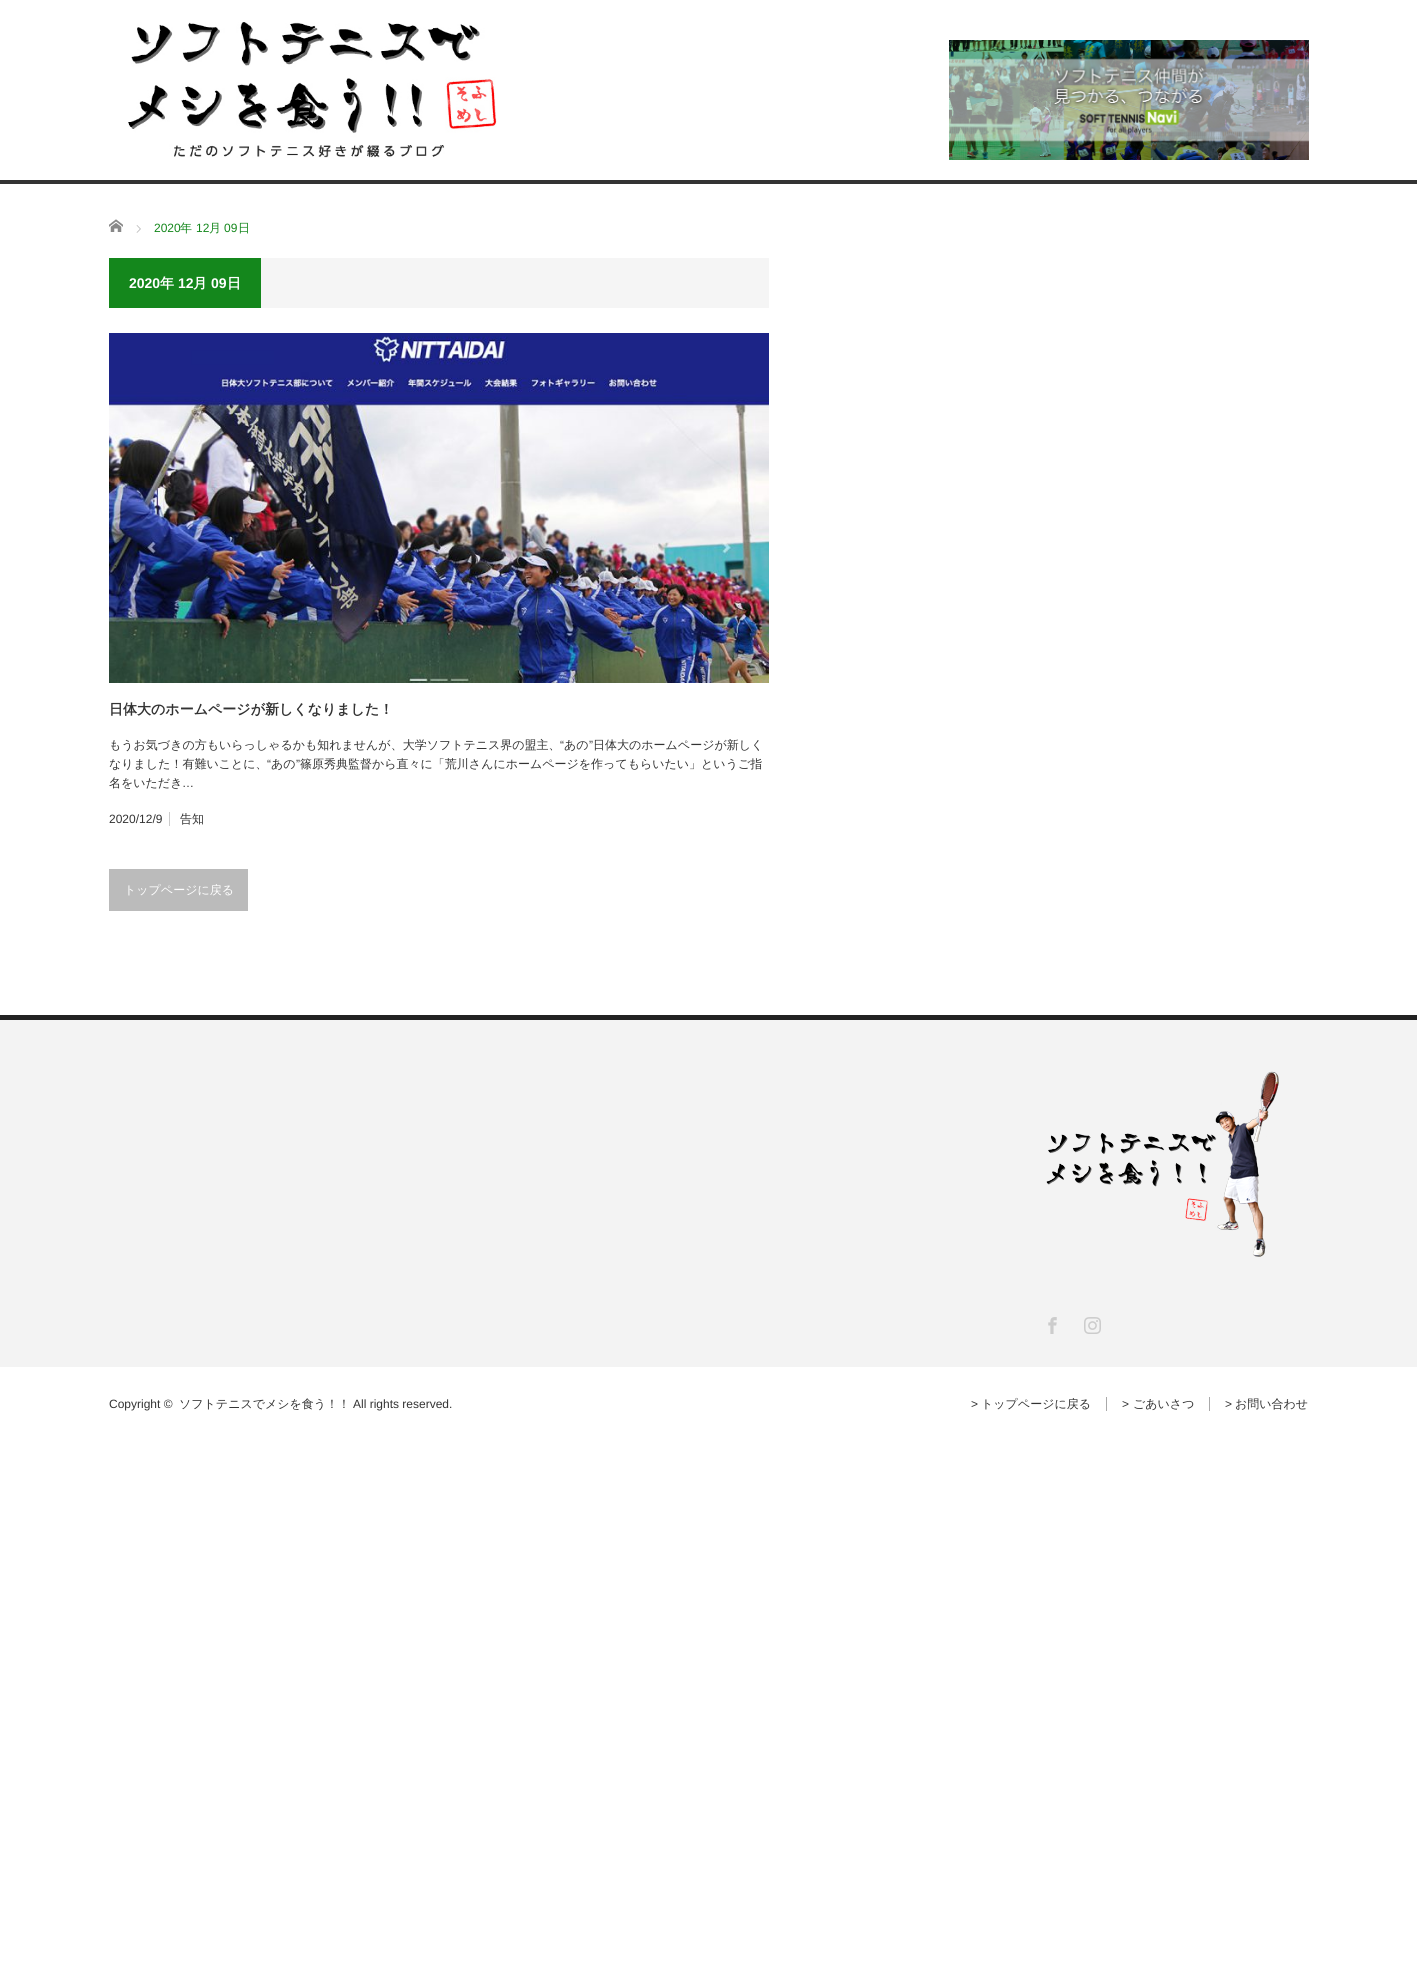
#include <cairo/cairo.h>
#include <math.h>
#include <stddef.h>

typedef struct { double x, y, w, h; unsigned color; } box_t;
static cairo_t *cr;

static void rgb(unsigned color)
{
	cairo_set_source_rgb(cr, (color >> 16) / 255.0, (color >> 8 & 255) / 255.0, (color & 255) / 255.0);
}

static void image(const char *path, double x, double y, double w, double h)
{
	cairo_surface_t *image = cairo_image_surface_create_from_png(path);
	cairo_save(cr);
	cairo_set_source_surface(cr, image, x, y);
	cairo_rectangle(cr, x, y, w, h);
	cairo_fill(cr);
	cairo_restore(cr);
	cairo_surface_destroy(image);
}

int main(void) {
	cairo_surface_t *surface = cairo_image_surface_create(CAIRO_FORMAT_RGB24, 1417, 1982);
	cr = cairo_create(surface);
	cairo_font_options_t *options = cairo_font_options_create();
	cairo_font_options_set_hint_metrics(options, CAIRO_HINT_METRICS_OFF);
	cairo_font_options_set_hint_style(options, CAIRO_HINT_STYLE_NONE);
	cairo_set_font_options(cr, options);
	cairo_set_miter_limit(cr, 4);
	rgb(0xffffff);
	cairo_paint(cr);
	rgb(0x333333);
	cairo_rectangle(cr, 0, 180, 1417, 4);
	cairo_fill(cr);
	image("img/1.png", 128, 22, 369, 136);
	image("img/2.png", 949, 40, 360, 120);
	image("img/3.png", 109, 219, 14, 13);
	image("img/4.png", 136, 225, 5, 8);
	rgb(0xf5f5f5);
	cairo_rectangle(cr, 261, 258, 508, 50);
	cairo_fill(cr);
	rgb(0x14871c);
	cairo_rectangle(cr, 109, 258, 152, 50);
	cairo_fill(cr);
	image("img/5.png", 109, 333, 660, 350);
	{
		static const box_t items[] = {
			{169, 812, 1, 14, 0xcccccc},
			{109, 869, 139, 42, 0xbbbbbb},
			{0, 1020, 1417, 347, 0xf3f3f3},
			{0, 1015, 1417, 5, 0x222222},
		};
		for (size_t i = 0; i < sizeof items / sizeof *items; i++) {
			rgb(items[i].color);
			cairo_rectangle(cr, items[i].x, items[i].y, items[i].w, items[i].h);
			cairo_fill(cr);
		}
	}
	image("img/6.png", 1046, 1071, 233, 186);
	image("img/7.png", 1048, 1317, 9, 17);
	image("img/8.png", 1084, 1317, 17, 17);
	rgb(0xaaaaaa);
	cairo_rectangle(cr, 1106, 1397, 1, 14);
	cairo_fill(cr);
	cairo_rectangle(cr, 1209, 1397, 1, 14);
	cairo_fill(cr);
	cairo_select_font_face(cr, "Liberation Sans", CAIRO_FONT_SLANT_NORMAL, CAIRO_FONT_WEIGHT_NORMAL);
	cairo_set_font_size(cr, 12);
	rgb(0x14871c);
	cairo_move_to(cr, 154, 232);
	cairo_show_text(cr, "2020");
	cairo_select_font_face(cr, "WenQuanYi Zen Hei Medium", CAIRO_FONT_SLANT_NORMAL, CAIRO_FONT_WEIGHT_NORMAL);
	cairo_move_to(cr, 180, 232);
	cairo_show_text(cr, "年");
	cairo_select_font_face(cr, "Liberation Sans", CAIRO_FONT_SLANT_NORMAL, CAIRO_FONT_WEIGHT_NORMAL);
	cairo_move_to(cr, 196, 232);
	cairo_show_text(cr, "12");
	cairo_select_font_face(cr, "WenQuanYi Zen Hei Medium", CAIRO_FONT_SLANT_NORMAL, CAIRO_FONT_WEIGHT_NORMAL);
	cairo_move_to(cr, 209, 232);
	cairo_show_text(cr, "月");
	cairo_select_font_face(cr, "Liberation Sans", CAIRO_FONT_SLANT_NORMAL, CAIRO_FONT_WEIGHT_NORMAL);
	cairo_move_to(cr, 224, 232);
	cairo_show_text(cr, "09");
	cairo_select_font_face(cr, "WenQuanYi Zen Hei Medium", CAIRO_FONT_SLANT_NORMAL, CAIRO_FONT_WEIGHT_NORMAL);
	cairo_move_to(cr, 238, 232);
	cairo_show_text(cr, "日");
	cairo_select_font_face(cr, "Liberation Sans", CAIRO_FONT_SLANT_NORMAL, CAIRO_FONT_WEIGHT_BOLD);
	cairo_set_font_size(cr, 14);
	rgb(0xffffff);
	cairo_move_to(cr, 129, 288);
	cairo_show_text(cr, "2020");
	cairo_select_font_face(cr, "WenQuanYi Zen Hei", CAIRO_FONT_SLANT_NORMAL, CAIRO_FONT_WEIGHT_BOLD);
	cairo_move_to(cr, 160, 288);
	cairo_show_text(cr, "年");
	cairo_select_font_face(cr, "Liberation Sans", CAIRO_FONT_SLANT_NORMAL, CAIRO_FONT_WEIGHT_BOLD);
	cairo_move_to(cr, 178, 288);
	cairo_show_text(cr, "12");
	cairo_select_font_face(cr, "WenQuanYi Zen Hei", CAIRO_FONT_SLANT_NORMAL, CAIRO_FONT_WEIGHT_BOLD);
	cairo_move_to(cr, 193, 288);
	cairo_show_text(cr, "月");
	cairo_select_font_face(cr, "Liberation Sans", CAIRO_FONT_SLANT_NORMAL, CAIRO_FONT_WEIGHT_BOLD);
	cairo_move_to(cr, 211, 288);
	cairo_show_text(cr, "09");
	cairo_select_font_face(cr, "WenQuanYi Zen Hei", CAIRO_FONT_SLANT_NORMAL, CAIRO_FONT_WEIGHT_BOLD);
	cairo_move_to(cr, 227, 288);
	cairo_show_text(cr, "日");
	rgb(0x333333);
	cairo_move_to(cr, 109, 714);
	cairo_show_text(cr, "日体大のホームページが新しくなりました！");
	cairo_select_font_face(cr, "WenQuanYi Zen Hei Medium", CAIRO_FONT_SLANT_NORMAL, CAIRO_FONT_WEIGHT_NORMAL);
	cairo_set_font_size(cr, 12);
	cairo_move_to(cr, 109, 749);
	cairo_show_text(cr, "もうお気づきの方もいらっしゃるかも知れませんが、大学ソフトテニス界の盟主、");
	cairo_select_font_face(cr, "Liberation Sans", CAIRO_FONT_SLANT_NORMAL, CAIRO_FONT_WEIGHT_NORMAL);
	cairo_move_to(cr, 560, 749);
	cairo_show_text(cr, "“");
	cairo_select_font_face(cr, "WenQuanYi Zen Hei Medium", CAIRO_FONT_SLANT_NORMAL, CAIRO_FONT_WEIGHT_NORMAL);
	cairo_move_to(cr, 564, 749);
	cairo_show_text(cr, "あの");
	cairo_select_font_face(cr, "Liberation Sans", CAIRO_FONT_SLANT_NORMAL, CAIRO_FONT_WEIGHT_NORMAL);
	cairo_move_to(cr, 589, 749);
	cairo_show_text(cr, "”");
	cairo_select_font_face(cr, "WenQuanYi Zen Hei Medium", CAIRO_FONT_SLANT_NORMAL, CAIRO_FONT_WEIGHT_NORMAL);
	cairo_move_to(cr, 593, 749);
	cairo_show_text(cr, "日体大のホームページが新しく");
	cairo_move_to(cr, 109, 768);
	cairo_show_text(cr, "なりました！有難いことに、");
	cairo_select_font_face(cr, "Liberation Sans", CAIRO_FONT_SLANT_NORMAL, CAIRO_FONT_WEIGHT_NORMAL);
	cairo_move_to(cr, 267, 768);
	cairo_show_text(cr, "“");
	cairo_select_font_face(cr, "WenQuanYi Zen Hei Medium", CAIRO_FONT_SLANT_NORMAL, CAIRO_FONT_WEIGHT_NORMAL);
	cairo_move_to(cr, 271, 768);
	cairo_show_text(cr, "あの");
	cairo_select_font_face(cr, "Liberation Sans", CAIRO_FONT_SLANT_NORMAL, CAIRO_FONT_WEIGHT_NORMAL);
	cairo_move_to(cr, 296, 768);
	cairo_show_text(cr, "”");
	cairo_select_font_face(cr, "WenQuanYi Zen Hei Medium", CAIRO_FONT_SLANT_NORMAL, CAIRO_FONT_WEIGHT_NORMAL);
	cairo_move_to(cr, 300, 768);
	cairo_show_text(cr, "篠原秀典監督から直々に「荒川さんにホームページを作ってもらいたい」というご指");
	cairo_move_to(cr, 109, 787);
	cairo_show_text(cr, "名をいただき");
	cairo_select_font_face(cr, "Liberation Sans", CAIRO_FONT_SLANT_NORMAL, CAIRO_FONT_WEIGHT_NORMAL);
	cairo_move_to(cr, 182, 787);
	cairo_show_text(cr, "…");
	cairo_move_to(cr, 109, 823);
	cairo_show_text(cr, "2020/12/9");
	cairo_select_font_face(cr, "WenQuanYi Zen Hei Medium", CAIRO_FONT_SLANT_NORMAL, CAIRO_FONT_WEIGHT_NORMAL);
	cairo_move_to(cr, 180, 823);
	cairo_show_text(cr, "告知");
	rgb(0xffffff);
	cairo_move_to(cr, 124, 894);
	cairo_show_text(cr, "トップページに戻る");
	cairo_select_font_face(cr, "Liberation Sans", CAIRO_FONT_SLANT_NORMAL, CAIRO_FONT_WEIGHT_NORMAL);
	rgb(0x333333);
	cairo_move_to(cr, 109, 1408);
	cairo_show_text(cr, "Copyright ©");
	cairo_select_font_face(cr, "WenQuanYi Zen Hei Medium", CAIRO_FONT_SLANT_NORMAL, CAIRO_FONT_WEIGHT_NORMAL);
	cairo_move_to(cr, 179, 1408);
	cairo_show_text(cr, "ソフトテニスでメシを食う！！");
	cairo_select_font_face(cr, "Liberation Sans", CAIRO_FONT_SLANT_NORMAL, CAIRO_FONT_WEIGHT_NORMAL);
	cairo_move_to(cr, 353, 1408);
	cairo_show_text(cr, "All rights reserved.");
	cairo_move_to(cr, 971, 1408);
	cairo_show_text(cr, ">");
	cairo_select_font_face(cr, "WenQuanYi Zen Hei Medium", CAIRO_FONT_SLANT_NORMAL, CAIRO_FONT_WEIGHT_NORMAL);
	cairo_move_to(cr, 981, 1408);
	cairo_show_text(cr, "トップページに戻る");
	cairo_select_font_face(cr, "Liberation Sans", CAIRO_FONT_SLANT_NORMAL, CAIRO_FONT_WEIGHT_NORMAL);
	cairo_move_to(cr, 1122, 1408);
	cairo_show_text(cr, ">");
	cairo_select_font_face(cr, "WenQuanYi Zen Hei Medium", CAIRO_FONT_SLANT_NORMAL, CAIRO_FONT_WEIGHT_NORMAL);
	cairo_move_to(cr, 1133, 1408);
	cairo_show_text(cr, "ごあいさつ");
	cairo_select_font_face(cr, "Liberation Sans", CAIRO_FONT_SLANT_NORMAL, CAIRO_FONT_WEIGHT_NORMAL);
	cairo_move_to(cr, 1225, 1408);
	cairo_show_text(cr, ">");
	cairo_select_font_face(cr, "WenQuanYi Zen Hei Medium", CAIRO_FONT_SLANT_NORMAL, CAIRO_FONT_WEIGHT_NORMAL);
	cairo_move_to(cr, 1235, 1408);
	cairo_show_text(cr, "お問い合わせ");
	cairo_surface_write_to_png(surface, "page.png");
	cairo_font_options_destroy(options);
	cairo_destroy(cr);
	cairo_surface_destroy(surface);
	return 0;
}
